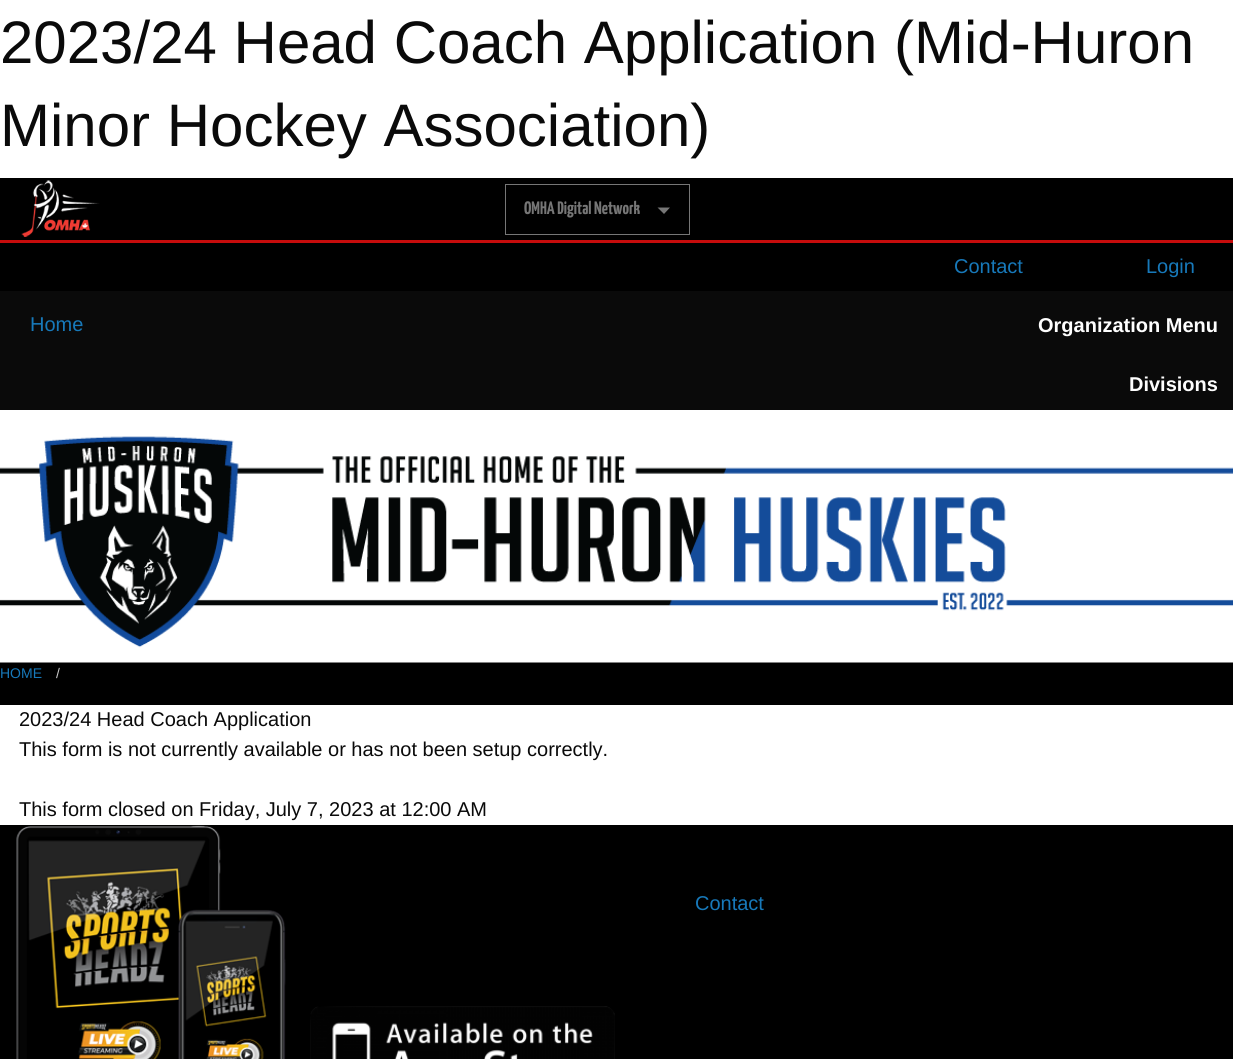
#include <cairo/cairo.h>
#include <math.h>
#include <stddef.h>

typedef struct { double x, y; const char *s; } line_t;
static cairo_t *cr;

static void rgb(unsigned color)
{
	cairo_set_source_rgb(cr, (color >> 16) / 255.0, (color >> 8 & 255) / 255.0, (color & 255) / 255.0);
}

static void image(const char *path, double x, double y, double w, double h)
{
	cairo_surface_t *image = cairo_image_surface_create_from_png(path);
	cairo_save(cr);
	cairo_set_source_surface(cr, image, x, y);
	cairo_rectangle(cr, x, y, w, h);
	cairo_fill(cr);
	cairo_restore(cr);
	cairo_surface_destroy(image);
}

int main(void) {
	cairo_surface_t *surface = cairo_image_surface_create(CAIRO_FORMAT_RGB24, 1233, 1059);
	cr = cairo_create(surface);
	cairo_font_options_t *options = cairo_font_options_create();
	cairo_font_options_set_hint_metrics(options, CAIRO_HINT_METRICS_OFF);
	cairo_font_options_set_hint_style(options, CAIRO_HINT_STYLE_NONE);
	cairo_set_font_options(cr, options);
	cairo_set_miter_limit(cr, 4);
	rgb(0xffffff);
	cairo_paint(cr);
	rgb(0x000000);
	cairo_rectangle(cr, 0, 178, 1233, 62);
	cairo_fill(cr);
	rgb(0xc60c0c);
	cairo_rectangle(cr, 0, 240, 1233, 3);
	cairo_fill(cr);
	image("img/1.png", 21, 180, 79, 57);
	cairo_rectangle(cr, 505.5, 184.5, 184, 50);
	rgb(0x767676);
	cairo_set_line_width(cr, 1);
	cairo_stroke(cr);
	cairo_new_path(cr);
	cairo_move_to(cr, 657.5, 207.5);
	cairo_line_to(cr, 670, 207.5);
	cairo_line_to(cr, 664, 214);
	cairo_close_path(cr);
	cairo_fill(cr);
	rgb(0x000000);
	cairo_rectangle(cr, 0, 243, 1233, 816);
	cairo_fill(cr);
	rgb(0x0a0a0a);
	cairo_rectangle(cr, 0, 291, 1233, 119);
	cairo_fill(cr);
	image("img/2.png", 0, 410, 1233, 253);
	rgb(0xffffff);
	cairo_rectangle(cr, 0, 705, 1233, 120);
	cairo_fill(cr);
	image("img/3.png", 16, 825, 270, 234);
	image("img/4.png", 310, 1006, 305, 53);
	cairo_select_font_face(cr, "Liberation Sans", CAIRO_FONT_SLANT_NORMAL, CAIRO_FONT_WEIGHT_NORMAL);
	cairo_set_font_size(cr, 60);
	rgb(0x0a0a0a);
	cairo_move_to(cr, 0, 63);
	cairo_show_text(cr, "2023/24 Head Coach Application (Mid-Huron");
	cairo_move_to(cr, 0, 146);
	cairo_show_text(cr, "Minor Hockey Association)");
	cairo_select_font_face(cr, "Yanone Kaffeesatz ExtraLight", CAIRO_FONT_SLANT_NORMAL, CAIRO_FONT_WEIGHT_NORMAL);
	cairo_set_font_size(cr, 18);
	rgb(0x767676);
	cairo_move_to(cr, 524, 214);
	cairo_show_text(cr, "OMHA Digital Network");
	cairo_select_font_face(cr, "Liberation Sans", CAIRO_FONT_SLANT_NORMAL, CAIRO_FONT_WEIGHT_NORMAL);
	cairo_set_font_size(cr, 20);
	rgb(0x1779ba);
	{
		static const line_t items[] = {
			{954, 273, "Contact"},
			{1146, 273, "Login"},
			{30, 331, "Home"},
		};
		for (size_t i = 0; i < sizeof items / sizeof *items; i++) {
			cairo_move_to(cr, items[i].x, items[i].y);
			cairo_show_text(cr, items[i].s);
		}
	}
	cairo_select_font_face(cr, "Liberation Sans", CAIRO_FONT_SLANT_NORMAL, CAIRO_FONT_WEIGHT_BOLD);
	rgb(0xfefefe);
	cairo_move_to(cr, 1038, 332);
	cairo_show_text(cr, "Organization Menu");
	cairo_move_to(cr, 1129, 391);
	cairo_show_text(cr, "Divisions");
	cairo_select_font_face(cr, "Liberation Sans", CAIRO_FONT_SLANT_NORMAL, CAIRO_FONT_WEIGHT_NORMAL);
	cairo_set_font_size(cr, 14);
	rgb(0x1779ba);
	cairo_move_to(cr, 0, 678);
	cairo_show_text(cr, "HOME");
	rgb(0xcacaca);
	cairo_move_to(cr, 56, 678);
	cairo_show_text(cr, "/");
	cairo_set_font_size(cr, 20);
	rgb(0x0a0a0a);
	{
		static const line_t items[] = {
			{19, 726, "2023/24 Head Coach Application"},
			{19, 756, "This form is not currently available or has not been setup correctly."},
			{19, 816, "This form closed on Friday, July 7, 2023 at 12:00 AM"},
		};
		for (size_t i = 0; i < sizeof items / sizeof *items; i++) {
			cairo_move_to(cr, items[i].x, items[i].y);
			cairo_show_text(cr, items[i].s);
		}
	}
	rgb(0x1779ba);
	cairo_move_to(cr, 695, 910);
	cairo_show_text(cr, "Contact");
	cairo_surface_write_to_png(surface, "page.png");
	cairo_font_options_destroy(options);
	cairo_destroy(cr);
	cairo_surface_destroy(surface);
	return 0;
}
